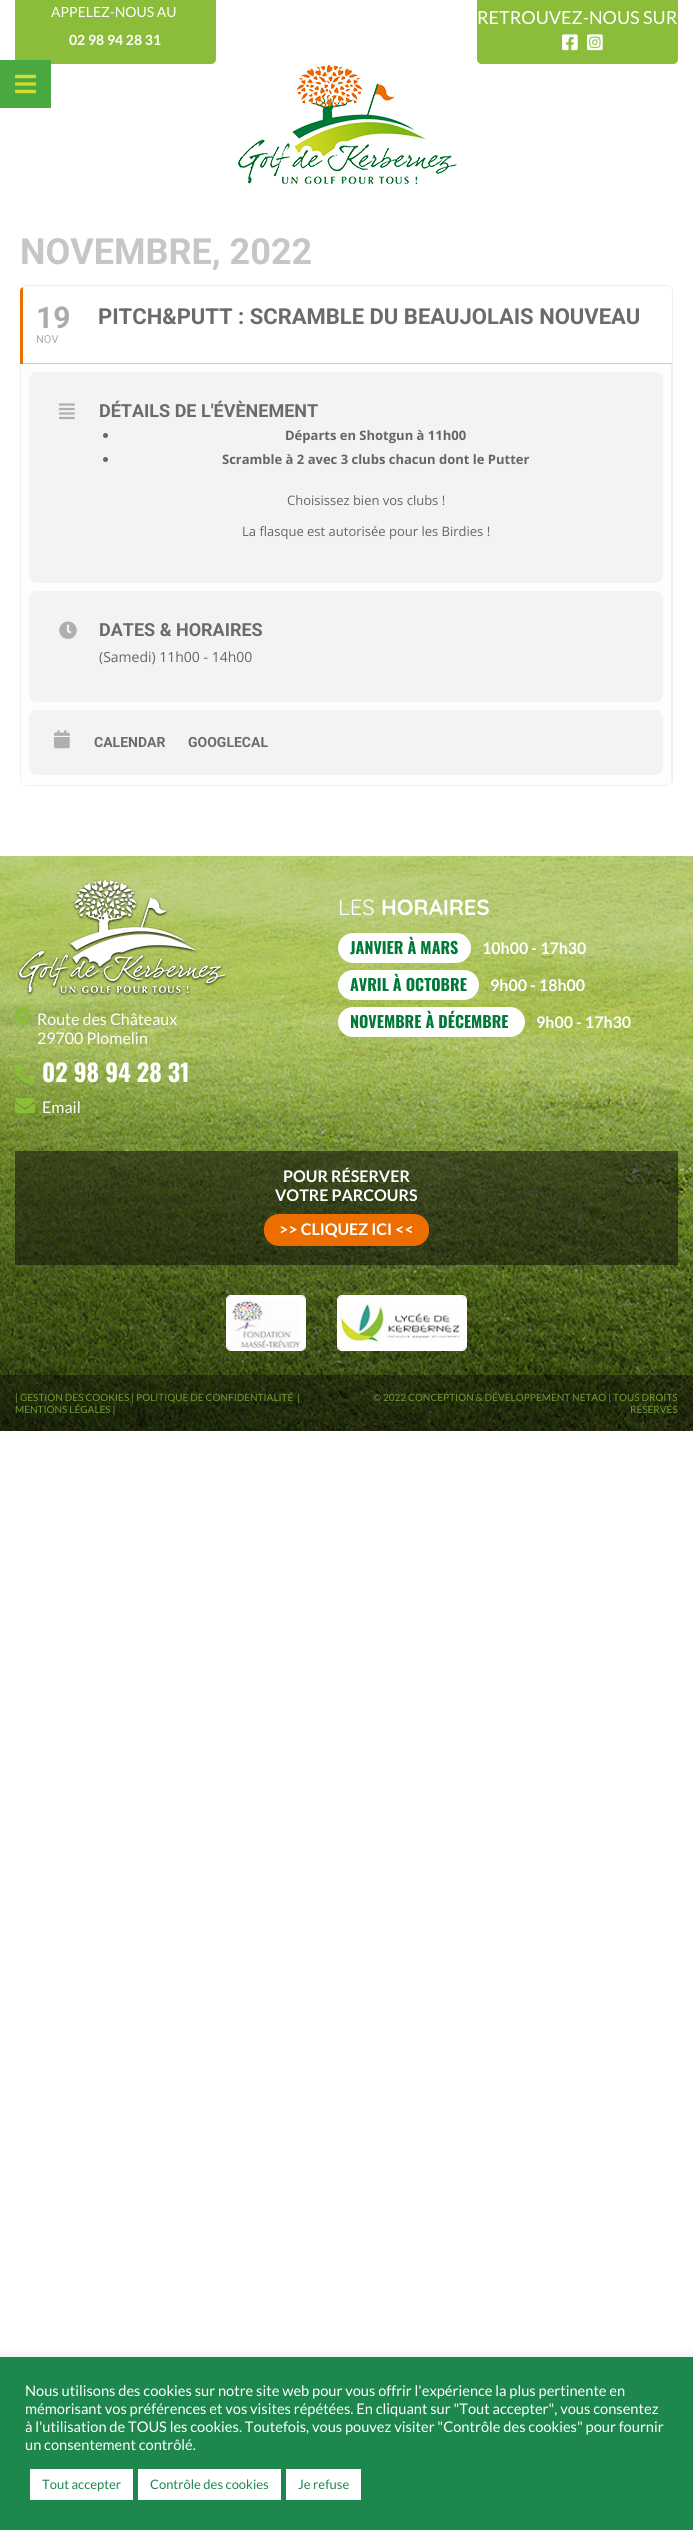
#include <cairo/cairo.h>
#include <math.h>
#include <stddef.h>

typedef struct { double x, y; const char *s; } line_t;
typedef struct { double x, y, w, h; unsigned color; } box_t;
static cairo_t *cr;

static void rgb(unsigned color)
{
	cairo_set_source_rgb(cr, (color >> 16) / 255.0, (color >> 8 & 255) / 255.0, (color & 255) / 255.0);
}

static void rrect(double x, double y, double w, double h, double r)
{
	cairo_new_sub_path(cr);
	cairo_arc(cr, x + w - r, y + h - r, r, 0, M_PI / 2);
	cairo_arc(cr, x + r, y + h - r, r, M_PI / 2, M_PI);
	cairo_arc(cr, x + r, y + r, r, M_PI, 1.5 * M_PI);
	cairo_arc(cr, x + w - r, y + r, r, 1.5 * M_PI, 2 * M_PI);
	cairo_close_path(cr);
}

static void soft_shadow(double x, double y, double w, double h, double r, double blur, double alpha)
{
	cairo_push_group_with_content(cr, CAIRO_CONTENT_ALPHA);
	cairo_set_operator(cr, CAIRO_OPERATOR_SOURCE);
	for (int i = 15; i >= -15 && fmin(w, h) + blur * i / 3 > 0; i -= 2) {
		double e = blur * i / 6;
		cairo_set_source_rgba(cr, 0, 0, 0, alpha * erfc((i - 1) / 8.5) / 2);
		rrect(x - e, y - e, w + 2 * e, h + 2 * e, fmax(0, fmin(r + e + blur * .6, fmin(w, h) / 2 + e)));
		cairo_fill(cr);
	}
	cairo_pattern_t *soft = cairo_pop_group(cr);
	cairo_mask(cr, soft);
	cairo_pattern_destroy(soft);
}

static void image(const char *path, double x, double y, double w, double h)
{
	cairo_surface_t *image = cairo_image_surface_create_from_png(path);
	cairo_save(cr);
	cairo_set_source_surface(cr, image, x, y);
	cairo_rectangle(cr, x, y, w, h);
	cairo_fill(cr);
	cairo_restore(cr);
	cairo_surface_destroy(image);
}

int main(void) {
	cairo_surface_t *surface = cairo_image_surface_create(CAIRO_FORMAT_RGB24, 693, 2530);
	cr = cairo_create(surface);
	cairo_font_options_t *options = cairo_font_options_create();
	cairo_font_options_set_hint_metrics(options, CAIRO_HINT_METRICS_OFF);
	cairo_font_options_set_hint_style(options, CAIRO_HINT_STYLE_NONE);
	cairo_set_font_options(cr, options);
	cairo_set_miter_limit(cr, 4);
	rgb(0xffffff);
	cairo_paint(cr);
	rgb(0x8bbd3a);
	cairo_new_path(cr);
	cairo_move_to(cr, 15, 0);
	cairo_line_to(cr, 216, 0);
	cairo_line_to(cr, 216, 59);
	cairo_curve_to(cr, 216, 62, 214, 64, 211, 64);
	cairo_line_to(cr, 20, 64);
	cairo_curve_to(cr, 17, 64, 15, 62, 15, 59);
	cairo_close_path(cr);
	cairo_fill(cr);
	cairo_new_path(cr);
	cairo_move_to(cr, 477, 0);
	cairo_line_to(cr, 678, 0);
	cairo_line_to(cr, 678, 59);
	cairo_curve_to(cr, 678, 62, 676, 64, 673, 64);
	cairo_line_to(cr, 482, 64);
	cairo_curve_to(cr, 479, 64, 477, 62, 477, 59);
	cairo_close_path(cr);
	cairo_fill(cr);
	image("img/1.png", 562, 34, 16, 17);
	image("img/2.png", 587, 34, 16, 17);
	image("img/3.png", 238, 65, 219, 119);
	rgb(0x49a93e);
	cairo_rectangle(cr, 0, 60, 51, 48);
	cairo_fill(cr);
	image("img/4.png", 15, 74, 21, 20);
	rgb(0xefeeee);
	cairo_set_fill_rule(cr, CAIRO_FILL_RULE_EVEN_ODD);
	cairo_new_path(cr);
	cairo_move_to(cr, 26, 285);
	cairo_line_to(cr, 667, 285);
	cairo_curve_to(cr, 670, 285, 673, 288, 673, 291);
	cairo_line_to(cr, 673, 780);
	cairo_curve_to(cr, 673, 783, 670, 786, 667, 786);
	cairo_line_to(cr, 26, 786);
	cairo_curve_to(cr, 23, 786, 20, 783, 20, 780);
	cairo_line_to(cr, 20, 291);
	cairo_curve_to(cr, 20, 288, 23, 285, 26, 285);
	cairo_close_path(cr);
	cairo_move_to(cr, 26, 286);
	cairo_line_to(cr, 667, 286);
	cairo_curve_to(cr, 670, 286, 672, 288, 672, 291);
	cairo_line_to(cr, 672, 780);
	cairo_curve_to(cr, 672, 783, 670, 786, 667, 786);
	cairo_line_to(cr, 26, 786);
	cairo_curve_to(cr, 23, 786, 20, 783, 20, 780);
	cairo_line_to(cr, 20, 291);
	cairo_curve_to(cr, 20, 288, 23, 286, 26, 286);
	cairo_close_path(cr);
	cairo_fill(cr);
	rgb(0xffffff);
	cairo_set_fill_rule(cr, CAIRO_FILL_RULE_WINDING);
	cairo_new_path(cr);
	cairo_move_to(cr, 26, 286);
	cairo_curve_to(cr, 23, 286, 20, 288, 20, 291);
	cairo_line_to(cr, 20, 364);
	cairo_line_to(cr, 672, 364);
	cairo_line_to(cr, 672, 291);
	cairo_curve_to(cr, 672, 288, 670, 286, 667, 286);
	cairo_close_path(cr);
	cairo_fill(cr);
	rgb(0xed6f00);
	cairo_new_path(cr);
	cairo_move_to(cr, 23, 287);
	cairo_curve_to(cr, 21, 288, 20, 289, 20, 291);
	cairo_line_to(cr, 20, 364);
	cairo_line_to(cr, 23, 364);
	cairo_close_path(cr);
	cairo_fill(cr);
	rgb(0xcdcdcd);
	cairo_rectangle(cr, 23, 363, 649, 1);
	cairo_fill(cr);
	rgb(0xfdfdfd);
	cairo_new_path(cr);
	cairo_move_to(cr, 20, 364);
	cairo_line_to(cr, 20, 780);
	cairo_curve_to(cr, 20, 783, 23, 786, 26, 786);
	cairo_line_to(cr, 667, 786);
	cairo_curve_to(cr, 670, 786, 672, 783, 672, 780);
	cairo_line_to(cr, 672, 364);
	cairo_close_path(cr);
	cairo_fill(cr);
	rgb(0xf1f1f1);
	cairo_new_path(cr);
	cairo_move_to(cr, 671, 364);
	cairo_line_to(cr, 671, 784);
	cairo_line_to(cr, 672, 780);
	cairo_line_to(cr, 672, 364);
	cairo_close_path(cr);
	cairo_fill(cr);
	cairo_new_path(cr);
	cairo_move_to(cr, 26, 786);
	cairo_line_to(cr, 667, 786);
	cairo_line_to(cr, 670, 785);
	cairo_line_to(cr, 23, 785);
	cairo_close_path(cr);
	cairo_fill(cr);
	cairo_new_path(cr);
	cairo_move_to(cr, 20, 364);
	cairo_line_to(cr, 20, 780);
	cairo_line_to(cr, 21, 783);
	cairo_line_to(cr, 21, 364);
	cairo_close_path(cr);
	cairo_fill(cr);
	rgb(0xf3f3f3);
	rrect(29, 372, 634, 211, 8);
	cairo_fill(cr);
	image("img/5.png", 59, 403, 16, 17);
	rgb(0x656565);
	cairo_arc(cr, 105.5, 435.5, 2.5, 0, 2 * M_PI);
	cairo_fill(cr);
	cairo_arc(cr, 105.5, 459.5, 2.5, 0, 2 * M_PI);
	cairo_fill(cr);
	rgb(0xf3f3f3);
	rrect(29, 591, 634, 111, 8);
	cairo_fill(cr);
	image("img/6.png", 59, 621, 18, 18);
	rrect(29, 710, 634, 65, 8);
	cairo_fill(cr);
	image("img/7.png", 54, 730, 16, 19);
	image("img/8.png", 0, 856, 693, 575);
	rgb(0xffffff);
	rrect(338, 933, 133, 30, 15);
	cairo_fill(cr);
	rrect(338, 970, 141, 30, 15);
	cairo_fill(cr);
	rrect(338, 1007, 187, 30, 15);
	cairo_fill(cr);
	image("img/9.png", 17, 880, 210, 116);
	image("img/10.png", 15, 1007, 15, 21);
	image("img/11.png", 15, 1064, 20, 21);
	image("img/12.png", 15, 1098, 20, 15);
	cairo_set_source_rgba(cr, 0.039, 0.039, 0.039, 0.5);
	cairo_rectangle(cr, 15, 1151, 663, 114);
	cairo_fill(cr);
	rgb(0xed6e00);
	rrect(264, 1214, 165, 32, 15);
	cairo_fill(cr);
	rrect(226.5, 1295.5, 79, 55, 4.5);
	rgb(0xffffff);
	cairo_set_line_width(cr, 1);
	cairo_stroke(cr);
	image("img/13.png", 227, 1296, 78, 54);
	rrect(337.5, 1295.5, 129, 55, 4.5);
	cairo_stroke(cr);
	image("img/14.png", 338, 1296, 128, 54);
	cairo_set_source_rgba(cr, 0.039, 0.039, 0.039, 0.4);
	cairo_rectangle(cr, 0, 1375, 693, 56);
	cairo_fill(cr);
	rgb(0xacabab);
	soft_shadow(0, 2356, 693, 173, 0, 5, 0.3);
	{
		static const box_t items[] = {
			{0, 2357, 693, 173, 0x1d874e},
			{30, 2469, 103, 31, 0xffffff},
			{138, 2469, 143, 31, 0xffffff},
			{286, 2469, 75, 31, 0xffffff},
		};
		for (size_t i = 0; i < sizeof items / sizeof *items; i++) {
			rgb(items[i].color);
			cairo_rectangle(cr, items[i].x, items[i].y, items[i].w, items[i].h);
			cairo_fill(cr);
		}
	}
	cairo_select_font_face(cr, "Lato", CAIRO_FONT_SLANT_NORMAL, CAIRO_FONT_WEIGHT_NORMAL);
	cairo_set_font_size(cr, 14);
	cairo_move_to(cr, 51, 17);
	cairo_show_text(cr, "APPELEZ-NOUS AU");
	cairo_select_font_face(cr, "Lato", CAIRO_FONT_SLANT_NORMAL, CAIRO_FONT_WEIGHT_BOLD);
	cairo_move_to(cr, 69, 45);
	cairo_show_text(cr, "02 98 94 28 31");
	cairo_select_font_face(cr, "Lato", CAIRO_FONT_SLANT_NORMAL, CAIRO_FONT_WEIGHT_NORMAL);
	cairo_set_font_size(cr, 18);
	cairo_move_to(cr, 477, 24);
	cairo_show_text(cr, "RETROUVEZ-NOUS SUR");
	cairo_select_font_face(cr, "Roboto", CAIRO_FONT_SLANT_NORMAL, CAIRO_FONT_WEIGHT_BOLD);
	cairo_set_font_size(cr, 36);
	rgb(0xc6c6c6);
	cairo_move_to(cr, 20, 264);
	cairo_show_text(cr, "NOVEMBRE, 2022");
	cairo_set_font_size(cr, 30);
	rgb(0xababab);
	cairo_move_to(cr, 36, 328);
	cairo_show_text(cr, "19");
	cairo_select_font_face(cr, "Roboto", CAIRO_FONT_SLANT_NORMAL, CAIRO_FONT_WEIGHT_NORMAL);
	cairo_set_font_size(cr, 11);
	cairo_move_to(cr, 36, 343);
	cairo_show_text(cr, "NOV");
	cairo_select_font_face(cr, "Roboto", CAIRO_FONT_SLANT_NORMAL, CAIRO_FONT_WEIGHT_BOLD);
	cairo_set_font_size(cr, 22);
	rgb(0x6b6b6b);
	cairo_move_to(cr, 98, 324);
	cairo_show_text(cr, "PITCH&PUTT : SCRAMBLE DU BEAUJOLAIS NOUVEAU");
	cairo_set_font_size(cr, 18);
	cairo_move_to(cr, 99, 417);
	cairo_show_text(cr, "DÉTAILS DE L'ÉVÈNEMENT");
	cairo_select_font_face(cr, "Open Sans", CAIRO_FONT_SLANT_NORMAL, CAIRO_FONT_WEIGHT_BOLD);
	cairo_set_font_size(cr, 13);
	rgb(0x656565);
	cairo_move_to(cr, 285, 440);
	cairo_show_text(cr, "Départs en Shotgun à 11h00");
	cairo_move_to(cr, 222, 464);
	cairo_show_text(cr, "Scramble à 2 avec 3 clubs chacun dont le Putter");
	cairo_select_font_face(cr, "Open Sans", CAIRO_FONT_SLANT_NORMAL, CAIRO_FONT_WEIGHT_NORMAL);
	cairo_move_to(cr, 287, 505);
	cairo_show_text(cr, "Choisissez bien vos clubs !");
	cairo_move_to(cr, 242, 536);
	cairo_show_text(cr, "La flasque est autorisée pour les Birdies !");
	cairo_select_font_face(cr, "Roboto", CAIRO_FONT_SLANT_NORMAL, CAIRO_FONT_WEIGHT_BOLD);
	cairo_set_font_size(cr, 18);
	rgb(0x6b6b6b);
	cairo_move_to(cr, 99, 636);
	cairo_show_text(cr, "DATES & HORAIRES");
	cairo_select_font_face(cr, "Open Sans", CAIRO_FONT_SLANT_NORMAL, CAIRO_FONT_WEIGHT_NORMAL);
	cairo_set_font_size(cr, 14);
	rgb(0x656565);
	cairo_move_to(cr, 99, 662);
	cairo_show_text(cr, "(Samedi) 11h00 - 14h00");
	cairo_select_font_face(cr, "Roboto", CAIRO_FONT_SLANT_NORMAL, CAIRO_FONT_WEIGHT_BOLD);
	rgb(0x6b6b6b);
	cairo_move_to(cr, 94, 747);
	cairo_show_text(cr, "CALENDAR");
	cairo_move_to(cr, 188, 747);
	cairo_show_text(cr, "GOOGLECAL");
	cairo_select_font_face(cr, "Quicksand", CAIRO_FONT_SLANT_NORMAL, CAIRO_FONT_WEIGHT_NORMAL);
	cairo_set_font_size(cr, 22);
	rgb(0xffffff);
	cairo_move_to(cr, 338, 915);
	cairo_show_text(cr, "LES");
	cairo_select_font_face(cr, "Quicksand", CAIRO_FONT_SLANT_NORMAL, CAIRO_FONT_WEIGHT_BOLD);
	cairo_move_to(cr, 381, 915);
	cairo_show_text(cr, "HORAIRES");
	cairo_select_font_face(cr, "Oswald", CAIRO_FONT_SLANT_NORMAL, CAIRO_FONT_WEIGHT_BOLD);
	cairo_set_font_size(cr, 16);
	rgb(0x007939);
	cairo_move_to(cr, 350, 954);
	cairo_show_text(cr, "JANVIER À MARS");
	cairo_select_font_face(cr, "Lato", CAIRO_FONT_SLANT_NORMAL, CAIRO_FONT_WEIGHT_BOLD);
	rgb(0xffffff);
	cairo_move_to(cr, 482, 954);
	cairo_show_text(cr, "10h00 - 17h30");
	cairo_select_font_face(cr, "Oswald", CAIRO_FONT_SLANT_NORMAL, CAIRO_FONT_WEIGHT_BOLD);
	rgb(0x007939);
	cairo_move_to(cr, 350, 991);
	cairo_show_text(cr, "AVRIL À OCTOBRE");
	cairo_select_font_face(cr, "Lato", CAIRO_FONT_SLANT_NORMAL, CAIRO_FONT_WEIGHT_BOLD);
	rgb(0xffffff);
	cairo_move_to(cr, 490, 991);
	cairo_show_text(cr, "9h00 - 18h00");
	cairo_select_font_face(cr, "Oswald", CAIRO_FONT_SLANT_NORMAL, CAIRO_FONT_WEIGHT_BOLD);
	rgb(0x007939);
	cairo_move_to(cr, 350, 1028);
	cairo_show_text(cr, "NOVEMBRE À DÉCEMBRE");
	cairo_select_font_face(cr, "Lato", CAIRO_FONT_SLANT_NORMAL, CAIRO_FONT_WEIGHT_BOLD);
	rgb(0xffffff);
	cairo_move_to(cr, 536, 1028);
	cairo_show_text(cr, "9h00 - 17h30");
	cairo_select_font_face(cr, "Lato", CAIRO_FONT_SLANT_NORMAL, CAIRO_FONT_WEIGHT_NORMAL);
	cairo_move_to(cr, 37, 1025);
	cairo_show_text(cr, "Route des Châteaux");
	cairo_move_to(cr, 37, 1044);
	cairo_show_text(cr, "29700 Plomelin");
	cairo_select_font_face(cr, "Oswald", CAIRO_FONT_SLANT_NORMAL, CAIRO_FONT_WEIGHT_BOLD);
	cairo_set_font_size(cr, 24);
	cairo_move_to(cr, 42, 1082);
	cairo_show_text(cr, "02 98 94 28 31");
	cairo_select_font_face(cr, "Lato", CAIRO_FONT_SLANT_NORMAL, CAIRO_FONT_WEIGHT_NORMAL);
	cairo_set_font_size(cr, 16);
	cairo_move_to(cr, 42, 1113);
	cairo_show_text(cr, "Email");
	cairo_select_font_face(cr, "Lato", CAIRO_FONT_SLANT_NORMAL, CAIRO_FONT_WEIGHT_BOLD);
	{
		static const line_t items[] = {
			{283, 1182, "POUR RÉSERVER"},
			{275, 1201, "VOTRE PARCOURS"},
			{279, 1235, ">> CLIQUEZ ICI <<"},
		};
		for (size_t i = 0; i < sizeof items / sizeof *items; i++) {
			cairo_move_to(cr, items[i].x, items[i].y);
			cairo_show_text(cr, items[i].s);
		}
	}
	cairo_select_font_face(cr, "Lato", CAIRO_FONT_SLANT_NORMAL, CAIRO_FONT_WEIGHT_NORMAL);
	cairo_set_font_size(cr, 10);
	rgb(0x719930);
	{
		static const line_t items[] = {
			{15, 1401, "| GESTION DES COOKIES | POLITIQUE DE CONFIDENTIALITÉ"},
			{297, 1401, "|"},
			{15, 1413, "MENTIONS LÉGALES |"},
			{373, 1401, "© 2022 CONCEPTION & DÉVELOPPEMENT NETAO | TOUS DROITS"},
			{630, 1413, "RÉSERVÉS"},
		};
		for (size_t i = 0; i < sizeof items / sizeof *items; i++) {
			cairo_move_to(cr, items[i].x, items[i].y);
			cairo_show_text(cr, items[i].s);
		}
	}
	cairo_set_font_size(cr, 14.65);
	rgb(0xffffff);
	{
		static const line_t items[] = {
			{25, 2396, "Nous utilisons des cookies sur notre site web pour vous offrir l'expérience la plus pertinente en"},
			{25, 2414, "mémorisant vos préférences et vos visites répétées. En cliquant sur \"Tout accepter\", vous consentez"},
			{25, 2432, "à l'utilisation de TOUS les cookies. Toutefois, vous pouvez visiter \"Contrôle des cookies\" pour fournir"},
			{25, 2450, "un consentement contrôlé."},
		};
		for (size_t i = 0; i < sizeof items / sizeof *items; i++) {
			cairo_move_to(cr, items[i].x, items[i].y);
			cairo_show_text(cr, items[i].s);
		}
	}
	cairo_set_font_size(cr, 13);
	rgb(0x1d874e);
	{
		static const line_t items[] = {
			{42, 2489, "Tout accepter"},
			{150, 2489, "Contrôle des cookies"},
			{298, 2489, "Je refuse"},
		};
		for (size_t i = 0; i < sizeof items / sizeof *items; i++) {
			cairo_move_to(cr, items[i].x, items[i].y);
			cairo_show_text(cr, items[i].s);
		}
	}
	cairo_surface_write_to_png(surface, "page.png");
	cairo_font_options_destroy(options);
	cairo_destroy(cr);
	cairo_surface_destroy(surface);
	return 0;
}
